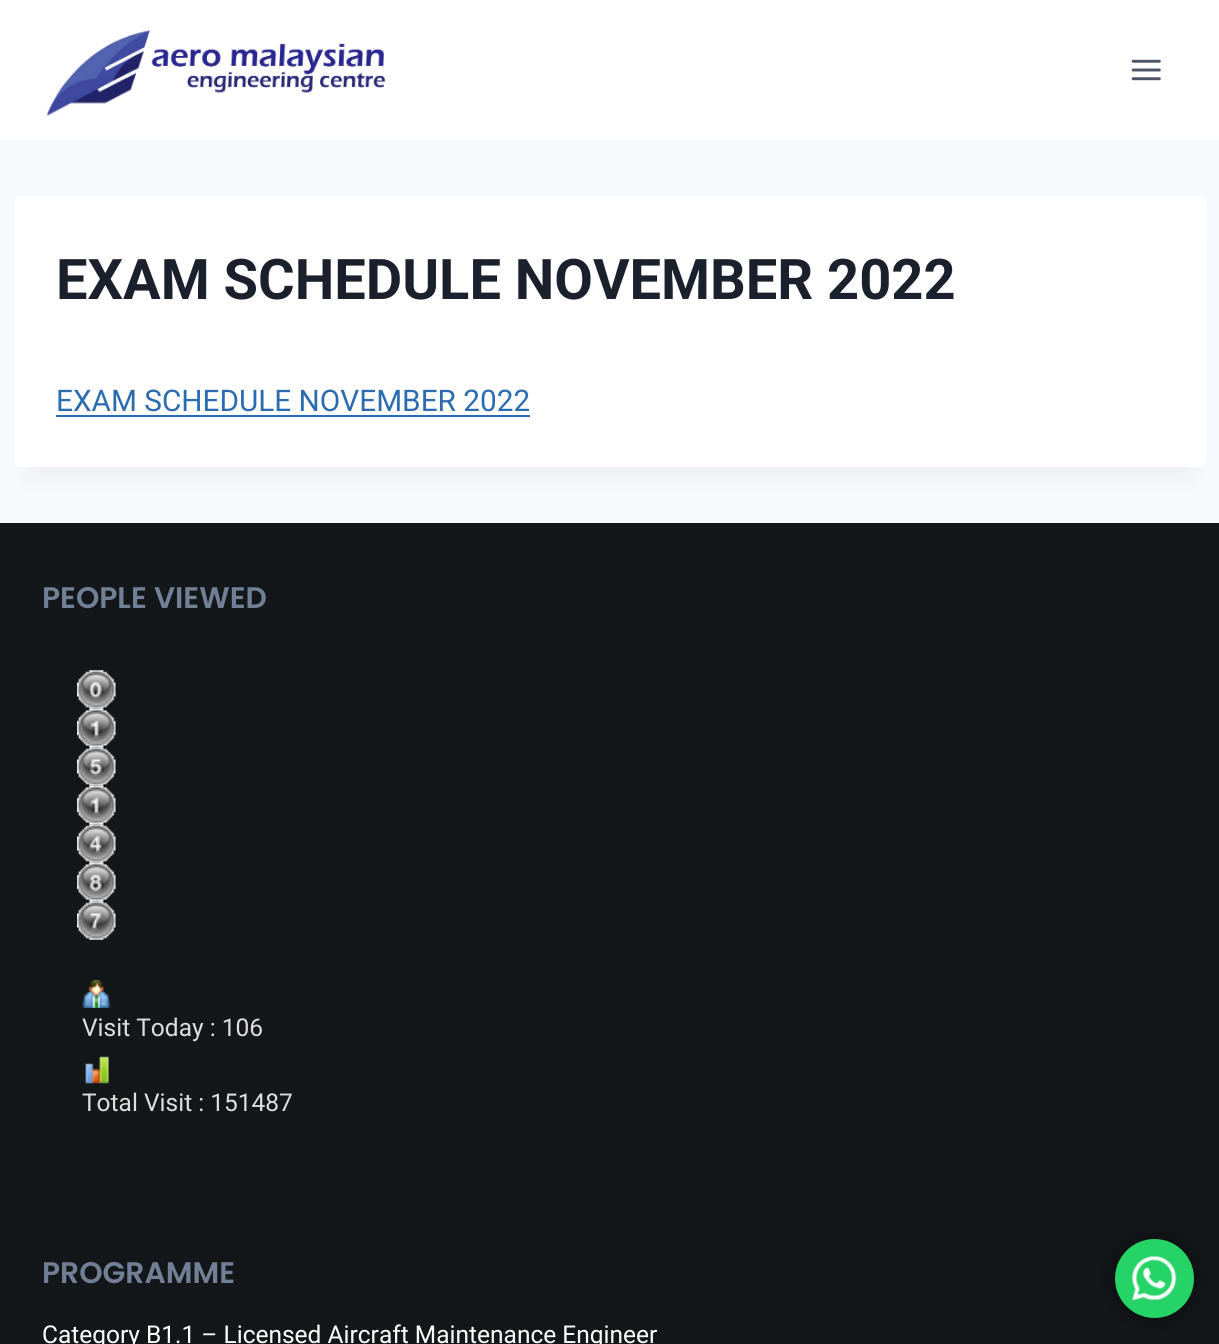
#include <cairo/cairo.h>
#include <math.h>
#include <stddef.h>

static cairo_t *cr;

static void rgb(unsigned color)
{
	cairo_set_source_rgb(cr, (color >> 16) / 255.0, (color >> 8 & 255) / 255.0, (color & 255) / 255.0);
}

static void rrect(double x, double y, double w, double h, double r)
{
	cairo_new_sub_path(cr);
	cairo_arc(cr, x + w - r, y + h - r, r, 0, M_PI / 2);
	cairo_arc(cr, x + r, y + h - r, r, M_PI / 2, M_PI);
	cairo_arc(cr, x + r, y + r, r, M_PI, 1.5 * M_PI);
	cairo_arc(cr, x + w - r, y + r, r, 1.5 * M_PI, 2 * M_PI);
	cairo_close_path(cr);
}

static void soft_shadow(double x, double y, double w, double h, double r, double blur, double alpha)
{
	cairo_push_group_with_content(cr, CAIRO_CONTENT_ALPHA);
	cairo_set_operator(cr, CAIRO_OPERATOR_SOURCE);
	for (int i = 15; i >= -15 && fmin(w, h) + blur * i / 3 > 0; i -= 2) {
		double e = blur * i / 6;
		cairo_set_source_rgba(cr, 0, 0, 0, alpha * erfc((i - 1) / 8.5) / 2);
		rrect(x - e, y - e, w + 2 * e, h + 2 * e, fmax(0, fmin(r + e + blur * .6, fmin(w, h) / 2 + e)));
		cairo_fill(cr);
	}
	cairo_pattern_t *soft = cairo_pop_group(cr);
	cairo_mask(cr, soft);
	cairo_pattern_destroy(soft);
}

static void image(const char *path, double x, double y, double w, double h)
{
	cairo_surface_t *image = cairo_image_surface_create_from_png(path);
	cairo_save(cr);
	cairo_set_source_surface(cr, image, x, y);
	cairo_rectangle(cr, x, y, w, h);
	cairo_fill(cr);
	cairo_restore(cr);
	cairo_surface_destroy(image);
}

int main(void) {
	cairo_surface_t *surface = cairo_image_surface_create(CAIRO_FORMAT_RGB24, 1219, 1344);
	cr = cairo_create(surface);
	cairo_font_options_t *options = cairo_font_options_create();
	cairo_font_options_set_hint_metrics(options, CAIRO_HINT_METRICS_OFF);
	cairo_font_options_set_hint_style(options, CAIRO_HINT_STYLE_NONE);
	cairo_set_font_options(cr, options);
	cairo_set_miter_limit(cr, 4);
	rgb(0xf7fafc);
	cairo_paint(cr);
	rgb(0xffffff);
	cairo_rectangle(cr, 0, 0, 1219, 140);
	cairo_fill(cr);
	image("img/1.png", 46, 30, 340, 86);
	image("img/2.png", 1131, 59, 30, 22);
	rgb(0x000000);
	soft_shadow(32, 240, 1156, 236, 0, 13, 0.05);
	rgb(0xffffff);
	rrect(14, 196, 1192, 271, 7);
	cairo_fill(cr);
	rgb(0x2b6cb0);
	cairo_rectangle(cr, 56, 415, 474, 2);
	cairo_fill(cr);
	rgb(0x14171a);
	cairo_rectangle(cr, 0, 523, 1219, 821);
	cairo_fill(cr);
	image("img/3.png", 77, 670, 39, 39);
	image("img/4.png", 77, 708, 39, 40);
	image("img/5.png", 77, 747, 39, 39);
	image("img/4.png", 77, 785, 39, 40);
	image("img/6.png", 77, 824, 39, 39);
	image("img/7.png", 77, 862, 39, 40);
	image("img/8.png", 77, 901, 39, 39);
	image("img/9.png", 82, 980, 29, 28);
	image("img/10.png", 85, 1056, 24, 28);
	rgb(0x000000);
	soft_shadow(1115, 1239, 79, 79, 39.5, 9.5, 0.5);
	rgb(0x25d366);
	cairo_arc(cr, 1154.5, 1278.5, 39.5, 0, 2 * M_PI);
	cairo_fill(cr);
	image("img/11.png", 1132, 1256, 45, 45);
	cairo_select_font_face(cr, "Roboto", CAIRO_FONT_SLANT_NORMAL, CAIRO_FONT_WEIGHT_BOLD);
	cairo_set_font_size(cr, 56);
	rgb(0x1a202c);
	cairo_move_to(cr, 56, 299);
	cairo_show_text(cr, "EXAM SCHEDULE NOVEMBER 2022");
	cairo_select_font_face(cr, "Roboto", CAIRO_FONT_SLANT_NORMAL, CAIRO_FONT_WEIGHT_NORMAL);
	cairo_set_font_size(cr, 29.75);
	rgb(0x2b6cb0);
	cairo_move_to(cr, 56, 411);
	cairo_show_text(cr, "EXAM SCHEDULE NOVEMBER 2022");
	cairo_select_font_face(cr, "Poppins SemiBold", CAIRO_FONT_SLANT_NORMAL, CAIRO_FONT_WEIGHT_NORMAL);
	rgb(0x718096);
	cairo_move_to(cr, 42, 608);
	cairo_show_text(cr, "PEOPLE VIEWED");
	cairo_select_font_face(cr, "Roboto", CAIRO_FONT_SLANT_NORMAL, CAIRO_FONT_WEIGHT_NORMAL);
	cairo_set_font_size(cr, 24.5);
	rgb(0xdedede);
	cairo_move_to(cr, 82, 1036);
	cairo_show_text(cr, "Visit Today : 106");
	cairo_move_to(cr, 82, 1111);
	cairo_show_text(cr, "Total Visit : 151487");
	cairo_select_font_face(cr, "Poppins SemiBold", CAIRO_FONT_SLANT_NORMAL, CAIRO_FONT_WEIGHT_NORMAL);
	cairo_set_font_size(cr, 29.75);
	rgb(0x718096);
	cairo_move_to(cr, 42, 1283);
	cairo_show_text(cr, "PROGRAMME");
	cairo_select_font_face(cr, "Roboto", CAIRO_FONT_SLANT_NORMAL, CAIRO_FONT_WEIGHT_NORMAL);
	cairo_set_font_size(cr, 24.5);
	rgb(0xffffff);
	cairo_move_to(cr, 42, 1343);
	cairo_show_text(cr, "Category B1.1 – Licensed Aircraft Maintenance Engineer");
	cairo_surface_write_to_png(surface, "page.png");
	cairo_font_options_destroy(options);
	cairo_destroy(cr);
	cairo_surface_destroy(surface);
	return 0;
}
